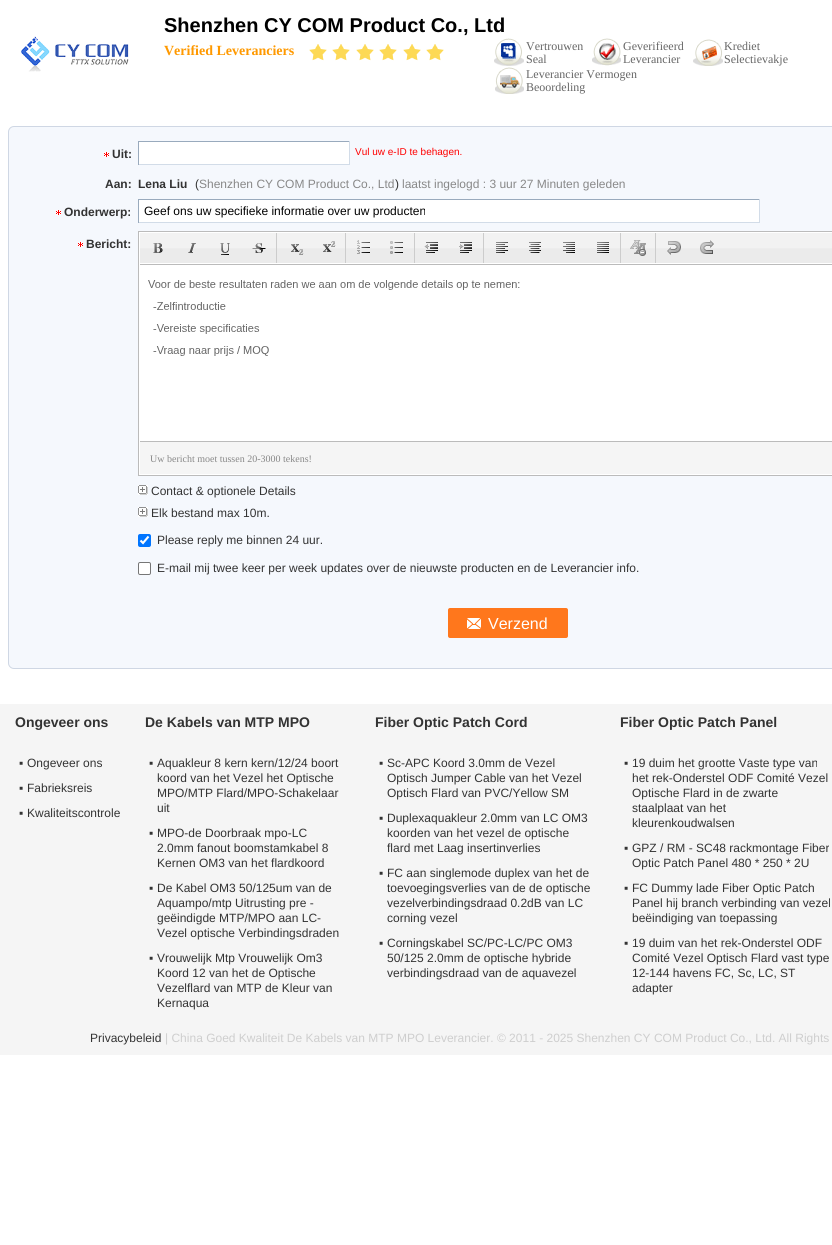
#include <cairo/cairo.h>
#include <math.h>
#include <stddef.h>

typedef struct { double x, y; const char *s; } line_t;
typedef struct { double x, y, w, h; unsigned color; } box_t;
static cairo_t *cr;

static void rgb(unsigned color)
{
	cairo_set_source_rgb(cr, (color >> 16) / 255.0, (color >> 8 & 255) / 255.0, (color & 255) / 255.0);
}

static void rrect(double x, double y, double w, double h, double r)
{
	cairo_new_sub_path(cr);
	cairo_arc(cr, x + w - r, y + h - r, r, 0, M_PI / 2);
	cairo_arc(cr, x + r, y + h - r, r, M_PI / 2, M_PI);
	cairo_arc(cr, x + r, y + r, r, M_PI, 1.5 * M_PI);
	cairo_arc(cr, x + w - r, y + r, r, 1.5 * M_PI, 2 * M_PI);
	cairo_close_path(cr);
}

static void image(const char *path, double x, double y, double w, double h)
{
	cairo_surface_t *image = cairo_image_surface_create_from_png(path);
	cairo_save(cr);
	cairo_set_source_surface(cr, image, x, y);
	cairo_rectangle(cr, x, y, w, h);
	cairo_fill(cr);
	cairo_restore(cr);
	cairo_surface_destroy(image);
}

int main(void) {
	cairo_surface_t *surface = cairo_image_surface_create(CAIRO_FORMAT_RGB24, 832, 1245);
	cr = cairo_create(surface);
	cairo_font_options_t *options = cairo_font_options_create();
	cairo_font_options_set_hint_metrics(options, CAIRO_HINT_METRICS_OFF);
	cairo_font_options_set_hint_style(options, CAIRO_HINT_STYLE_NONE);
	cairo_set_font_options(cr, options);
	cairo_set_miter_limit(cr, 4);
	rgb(0xffffff);
	cairo_paint(cr);
	image("img/1.png", 21, 36, 108, 36);
	image("img/2.png", 309, 44, 18, 17);
	image("img/3.png", 332, 44, 18, 17);
	image("img/2.png", 356, 44, 18, 17);
	image("img/3.png", 379, 44, 18, 17);
	image("img/2.png", 403, 44, 18, 17);
	image("img/3.png", 426, 44, 18, 17);
	image("img/4.png", 494, 38, 30, 28);
	image("img/5.png", 592, 38, 29, 28);
	image("img/6.png", 693, 39, 30, 27);
	image("img/7.png", 495, 67, 29, 27);
	rgb(0xf5f8fd);
	rrect(8.5, 126.5, 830, 542, 5.5);
	cairo_fill_preserve(cr);
	rgb(0xcfd7e4);
	cairo_set_line_width(cr, 1);
	cairo_stroke(cr);
	image("img/8.png", 104, 152, 5, 5);
	{
		static const box_t items[] = {
			{139, 142, 210, 22, 0xffffff},
			{138, 141, 212, 1, 0x99aabd},
			{349, 141, 1, 24, 0xd2dce8},
			{138, 164, 212, 1, 0xd2dce8},
			{138, 141, 1, 24, 0x99aabd},
		};
		for (size_t i = 0; i < sizeof items / sizeof *items; i++) {
			rgb(items[i].color);
			cairo_rectangle(cr, items[i].x, items[i].y, items[i].w, items[i].h);
			cairo_fill(cr);
		}
	}
	image("img/8.png", 56, 210, 5, 5);
	{
		static const box_t items[] = {
			{139, 200, 620, 22, 0xffffff},
			{138, 199, 622, 1, 0x99aabd},
			{759, 199, 1, 24, 0xd2dce8},
			{138, 222, 622, 1, 0xd2dce8},
			{138, 199, 1, 24, 0x99aabd},
		};
		for (size_t i = 0; i < sizeof items / sizeof *items; i++) {
			rgb(items[i].color);
			cairo_rectangle(cr, items[i].x, items[i].y, items[i].w, items[i].h);
			cairo_fill(cr);
		}
	}
	image("img/8.png", 78, 242, 5, 5);
	rgb(0xffffff);
	cairo_rectangle(cr, 138.5, 231.5, 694, 244);
	cairo_fill_preserve(cr);
	rgb(0xbbbbbb);
	cairo_stroke(cr);
	image("img/9.png", 140, 233, 692, 30);
	cairo_rectangle(cr, 140, 264, 692, 1);
	cairo_fill(cr);
	image("img/10.png", 153, 243, 10, 10);
	image("img/11.png", 188, 243, 8, 10);
	image("img/12.png", 220, 243, 10, 12);
	image("img/13.png", 252, 243, 14, 10);
	rgb(0xcccccc);
	cairo_rectangle(cr, 276, 233, 1, 30);
	cairo_fill(cr);
	image("img/14.png", 291, 244, 13, 11);
	image("img/15.png", 323, 241, 13, 11);
	cairo_rectangle(cr, 345, 233, 1, 30);
	cairo_fill(cr);
	image("img/16.png", 357, 240, 13, 14);
	image("img/17.png", 390, 241, 13, 13);
	cairo_rectangle(cr, 414, 233, 1, 30);
	cairo_fill(cr);
	image("img/18.png", 424, 242, 14, 11);
	image("img/19.png", 459, 242, 13, 11);
	cairo_rectangle(cr, 483, 233, 1, 30);
	cairo_fill(cr);
	image("img/20.png", 496, 242, 12, 11);
	image("img/21.png", 529, 242, 12, 11);
	image("img/22.png", 563, 242, 12, 11);
	image("img/23.png", 597, 242, 12, 11);
	cairo_rectangle(cr, 620, 233, 1, 30);
	cairo_fill(cr);
	image("img/24.png", 630, 240, 16, 16);
	cairo_rectangle(cr, 655, 233, 1, 30);
	cairo_fill(cr);
	image("img/25.png", 667, 241, 14, 14);
	image("img/26.png", 700, 240, 14, 14);
	image("img/27.png", 148, 280, 372, 76);
	rgb(0xf5f5f5);
	cairo_rectangle(cr, 140, 442, 692, 32);
	cairo_fill(cr);
	rgb(0xbbbbbb);
	cairo_rectangle(cr, 140, 441, 692, 1);
	cairo_fill(cr);
	image("img/28.png", 138, 485, 10, 10);
	image("img/28.png", 138, 507, 10, 10);
	rgb(0x0075ff);
	rrect(138, 534, 13, 13, 2);
	cairo_fill(cr);
	cairo_new_path(cr);
	cairo_move_to(cr, 140.5, 540.5);
	cairo_line_to(cr, 143, 543);
	cairo_line_to(cr, 148.5, 536.5);
	rgb(0xffffff);
	cairo_set_line_width(cr, 2.1);
	cairo_stroke(cr);
	rrect(138.5, 562.5, 12, 12, 1.5);
	cairo_fill_preserve(cr);
	rgb(0x767676);
	cairo_set_line_width(cr, 1);
	cairo_stroke(cr);
	rgb(0xff771c);
	rrect(448, 608, 120, 30, 2);
	cairo_fill(cr);
	image("img/29.png", 467, 618, 14, 11);
	rgb(0xf5f5f5);
	cairo_rectangle(cr, 0, 704, 832, 351);
	cairo_fill(cr);
	cairo_select_font_face(cr, "Liberation Sans", CAIRO_FONT_SLANT_NORMAL, CAIRO_FONT_WEIGHT_BOLD);
	cairo_set_font_size(cr, 20);
	rgb(0x000000);
	cairo_move_to(cr, 164, 32);
	cairo_show_text(cr, "Shenzhen CY COM Product Co., Ltd");
	cairo_select_font_face(cr, "Liberation Serif", CAIRO_FONT_SLANT_NORMAL, CAIRO_FONT_WEIGHT_BOLD);
	cairo_set_font_size(cr, 14);
	rgb(0xff9900);
	cairo_move_to(cr, 164, 55);
	cairo_show_text(cr, "Verified Leveranciers");
	cairo_select_font_face(cr, "Liberation Serif", CAIRO_FONT_SLANT_NORMAL, CAIRO_FONT_WEIGHT_NORMAL);
	cairo_set_font_size(cr, 12);
	rgb(0x666666);
	{
		static const line_t items[] = {
			{526, 50, "Vertrouwen"},
			{526, 63, "Seal"},
			{623, 50, "Geverifieerd"},
			{623, 63, "Leverancier"},
			{724, 50, "Krediet"},
			{724, 63, "Selectievakje"},
			{526, 78, "Leverancier Vermogen"},
			{526, 91, "Beoordeling"},
		};
		for (size_t i = 0; i < sizeof items / sizeof *items; i++) {
			cairo_move_to(cr, items[i].x, items[i].y);
			cairo_show_text(cr, items[i].s);
		}
	}
	cairo_select_font_face(cr, "Liberation Sans", CAIRO_FONT_SLANT_NORMAL, CAIRO_FONT_WEIGHT_BOLD);
	rgb(0x333333);
	cairo_move_to(cr, 112, 158);
	cairo_show_text(cr, "Uit:");
	cairo_select_font_face(cr, "Liberation Sans", CAIRO_FONT_SLANT_NORMAL, CAIRO_FONT_WEIGHT_NORMAL);
	cairo_set_font_size(cr, 10);
	rgb(0xff0000);
	cairo_move_to(cr, 355, 155);
	cairo_show_text(cr, "Vul uw e-ID te behagen.");
	cairo_select_font_face(cr, "Liberation Sans", CAIRO_FONT_SLANT_NORMAL, CAIRO_FONT_WEIGHT_BOLD);
	cairo_set_font_size(cr, 12);
	rgb(0x333333);
	cairo_move_to(cr, 105, 188);
	cairo_show_text(cr, "Aan:");
	cairo_move_to(cr, 138, 188);
	cairo_show_text(cr, "Lena Liu");
	cairo_select_font_face(cr, "Liberation Sans", CAIRO_FONT_SLANT_NORMAL, CAIRO_FONT_WEIGHT_NORMAL);
	cairo_move_to(cr, 195, 188);
	cairo_show_text(cr, "(");
	rgb(0x888888);
	cairo_move_to(cr, 199, 188);
	cairo_show_text(cr, "Shenzhen CY COM Product Co., Ltd");
	rgb(0x333333);
	cairo_move_to(cr, 395, 188);
	cairo_show_text(cr, ")");
	rgb(0x888888);
	cairo_move_to(cr, 402, 188);
	cairo_show_text(cr, "laatst ingelogd : 3 uur 27 Minuten geleden");
	cairo_select_font_face(cr, "Liberation Sans", CAIRO_FONT_SLANT_NORMAL, CAIRO_FONT_WEIGHT_BOLD);
	rgb(0x333333);
	cairo_move_to(cr, 64, 216);
	cairo_show_text(cr, "Onderwerp:");
	cairo_select_font_face(cr, "Liberation Sans", CAIRO_FONT_SLANT_NORMAL, CAIRO_FONT_WEIGHT_NORMAL);
	rgb(0x000000);
	cairo_move_to(cr, 144, 215);
	cairo_show_text(cr, "Geef ons uw specifieke informatie over uw producten");
	cairo_select_font_face(cr, "Liberation Sans", CAIRO_FONT_SLANT_NORMAL, CAIRO_FONT_WEIGHT_BOLD);
	rgb(0x333333);
	cairo_move_to(cr, 86, 248);
	cairo_show_text(cr, "Bericht:");
	cairo_select_font_face(cr, "Liberation Serif", CAIRO_FONT_SLANT_NORMAL, CAIRO_FONT_WEIGHT_NORMAL);
	cairo_set_font_size(cr, 10);
	rgb(0x888888);
	cairo_move_to(cr, 150, 462);
	cairo_show_text(cr, "Uw bericht moet tussen 20-3000 tekens!");
	cairo_select_font_face(cr, "Liberation Sans", CAIRO_FONT_SLANT_NORMAL, CAIRO_FONT_WEIGHT_NORMAL);
	cairo_set_font_size(cr, 12);
	rgb(0x333333);
	{
		static const line_t items[] = {
			{151, 495, "Contact & optionele Details"},
			{151, 517, "Elk bestand max 10m."},
			{157, 544, "Please reply me binnen 24 uur."},
			{157, 572, "E-mail mij twee keer per week updates over de nieuwste producten en de Leverancier info."},
		};
		for (size_t i = 0; i < sizeof items / sizeof *items; i++) {
			cairo_move_to(cr, items[i].x, items[i].y);
			cairo_show_text(cr, items[i].s);
		}
	}
	cairo_set_font_size(cr, 16);
	rgb(0xffffff);
	cairo_move_to(cr, 488, 629);
	cairo_show_text(cr, "Verzend");
	cairo_select_font_face(cr, "Liberation Sans", CAIRO_FONT_SLANT_NORMAL, CAIRO_FONT_WEIGHT_BOLD);
	cairo_set_font_size(cr, 14);
	rgb(0x333333);
	cairo_move_to(cr, 15, 727);
	cairo_show_text(cr, "Ongeveer ons");
	cairo_select_font_face(cr, "Liberation Sans", CAIRO_FONT_SLANT_NORMAL, CAIRO_FONT_WEIGHT_NORMAL);
	cairo_set_font_size(cr, 12);
	{
		static const line_t items[] = {
			{19, 767, "▪"},
			{27, 767, "Ongeveer ons"},
			{19, 792, "▪"},
			{27, 792, "Fabrieksreis"},
			{19, 817, "▪"},
			{27, 817, "Kwaliteitscontrole"},
		};
		for (size_t i = 0; i < sizeof items / sizeof *items; i++) {
			cairo_move_to(cr, items[i].x, items[i].y);
			cairo_show_text(cr, items[i].s);
		}
	}
	cairo_select_font_face(cr, "Liberation Sans", CAIRO_FONT_SLANT_NORMAL, CAIRO_FONT_WEIGHT_BOLD);
	cairo_set_font_size(cr, 14);
	cairo_move_to(cr, 145, 727);
	cairo_show_text(cr, "De Kabels van MTP MPO");
	cairo_select_font_face(cr, "Liberation Sans", CAIRO_FONT_SLANT_NORMAL, CAIRO_FONT_WEIGHT_NORMAL);
	cairo_set_font_size(cr, 12);
	{
		static const line_t items[] = {
			{149, 767, "▪"},
			{157, 767, "Aquakleur 8 kern kern/12/24 boort"},
			{157, 782, "koord van het Vezel het Optische"},
			{157, 797, "MPO/MTP Flard/MPO-Schakelaar"},
			{157, 812, "uit"},
			{149, 837, "▪"},
			{157, 837, "MPO-de Doorbraak mpo-LC"},
			{157, 852, "2.0mm fanout boomstamkabel 8"},
			{157, 867, "Kernen OM3 van het flardkoord"},
			{149, 892, "▪"},
			{157, 892, "De Kabel OM3 50/125um van de"},
			{157, 907, "Aquampo/mtp Uitrusting pre -"},
			{157, 922, "geëindigde MTP/MPO aan LC-"},
			{157, 937, "Vezel optische Verbindingsdraden"},
			{149, 962, "▪"},
			{157, 962, "Vrouwelijk Mtp Vrouwelijk Om3"},
			{157, 977, "Koord 12 van het de Optische"},
			{157, 992, "Vezelflard van MTP de Kleur van"},
			{157, 1007, "Kernaqua"},
		};
		for (size_t i = 0; i < sizeof items / sizeof *items; i++) {
			cairo_move_to(cr, items[i].x, items[i].y);
			cairo_show_text(cr, items[i].s);
		}
	}
	cairo_select_font_face(cr, "Liberation Sans", CAIRO_FONT_SLANT_NORMAL, CAIRO_FONT_WEIGHT_BOLD);
	cairo_set_font_size(cr, 14);
	cairo_move_to(cr, 375, 727);
	cairo_show_text(cr, "Fiber Optic Patch Cord");
	cairo_select_font_face(cr, "Liberation Sans", CAIRO_FONT_SLANT_NORMAL, CAIRO_FONT_WEIGHT_NORMAL);
	cairo_set_font_size(cr, 12);
	{
		static const line_t items[] = {
			{379, 767, "▪"},
			{387, 767, "Sc-APC Koord 3.0mm de Vezel"},
			{387, 782, "Optisch Jumper Cable van het Vezel"},
			{387, 797, "Optisch Flard van PVC/Yellow SM"},
			{379, 822, "▪"},
			{387, 822, "Duplexaquakleur 2.0mm van LC OM3"},
			{387, 837, "koorden van het vezel de optische"},
			{387, 852, "flard met Laag insertinverlies"},
			{379, 877, "▪"},
			{387, 877, "FC aan singlemode duplex van het de"},
			{387, 892, "toevoegingsverlies van de de optische"},
			{387, 907, "vezelverbindingsdraad 0.2dB van LC"},
			{387, 922, "corning vezel"},
			{379, 947, "▪"},
			{387, 947, "Corningskabel SC/PC-LC/PC OM3"},
			{387, 962, "50/125 2.0mm de optische hybride"},
			{387, 977, "verbindingsdraad van de aquavezel"},
		};
		for (size_t i = 0; i < sizeof items / sizeof *items; i++) {
			cairo_move_to(cr, items[i].x, items[i].y);
			cairo_show_text(cr, items[i].s);
		}
	}
	cairo_select_font_face(cr, "Liberation Sans", CAIRO_FONT_SLANT_NORMAL, CAIRO_FONT_WEIGHT_BOLD);
	cairo_set_font_size(cr, 14);
	cairo_move_to(cr, 620, 727);
	cairo_show_text(cr, "Fiber Optic Patch Panel");
	cairo_select_font_face(cr, "Liberation Sans", CAIRO_FONT_SLANT_NORMAL, CAIRO_FONT_WEIGHT_NORMAL);
	cairo_set_font_size(cr, 12);
	{
		static const line_t items[] = {
			{624, 767, "▪"},
			{632, 767, "19 duim het grootte Vaste type van"},
			{632, 782, "het rek-Onderstel ODF Comité Vezel"},
			{632, 797, "Optische Flard in de zwarte"},
			{632, 812, "staalplaat van het"},
			{632, 827, "kleurenkoudwalsen"},
			{624, 852, "▪"},
			{632, 852, "GPZ / RM - SC48 rackmontage Fiber"},
			{632, 867, "Optic Patch Panel 480 * 250 * 2U"},
			{624, 892, "▪"},
			{632, 892, "FC Dummy lade Fiber Optic Patch"},
			{632, 907, "Panel hij branch verbinding van vezel"},
			{632, 922, "beëindiging van toepassing"},
			{624, 947, "▪"},
			{632, 947, "19 duim van het rek-Onderstel ODF"},
			{632, 962, "Comité Vezel Optisch Flard vast type"},
			{632, 977, "12-144 havens FC, Sc, LC, ST"},
			{632, 992, "adapter"},
			{90, 1042, "Privacybeleid"},
		};
		for (size_t i = 0; i < sizeof items / sizeof *items; i++) {
			cairo_move_to(cr, items[i].x, items[i].y);
			cairo_show_text(cr, items[i].s);
		}
	}
	rgb(0xcecece);
	cairo_move_to(cr, 165, 1042);
	cairo_show_text(cr, "| China Goed Kwaliteit De Kabels van MTP MPO Leverancier. © 2011 - 2025 Shenzhen CY COM Product Co., Ltd. All Rights");
	cairo_surface_write_to_png(surface, "page.png");
	cairo_font_options_destroy(options);
	cairo_destroy(cr);
	cairo_surface_destroy(surface);
	return 0;
}
